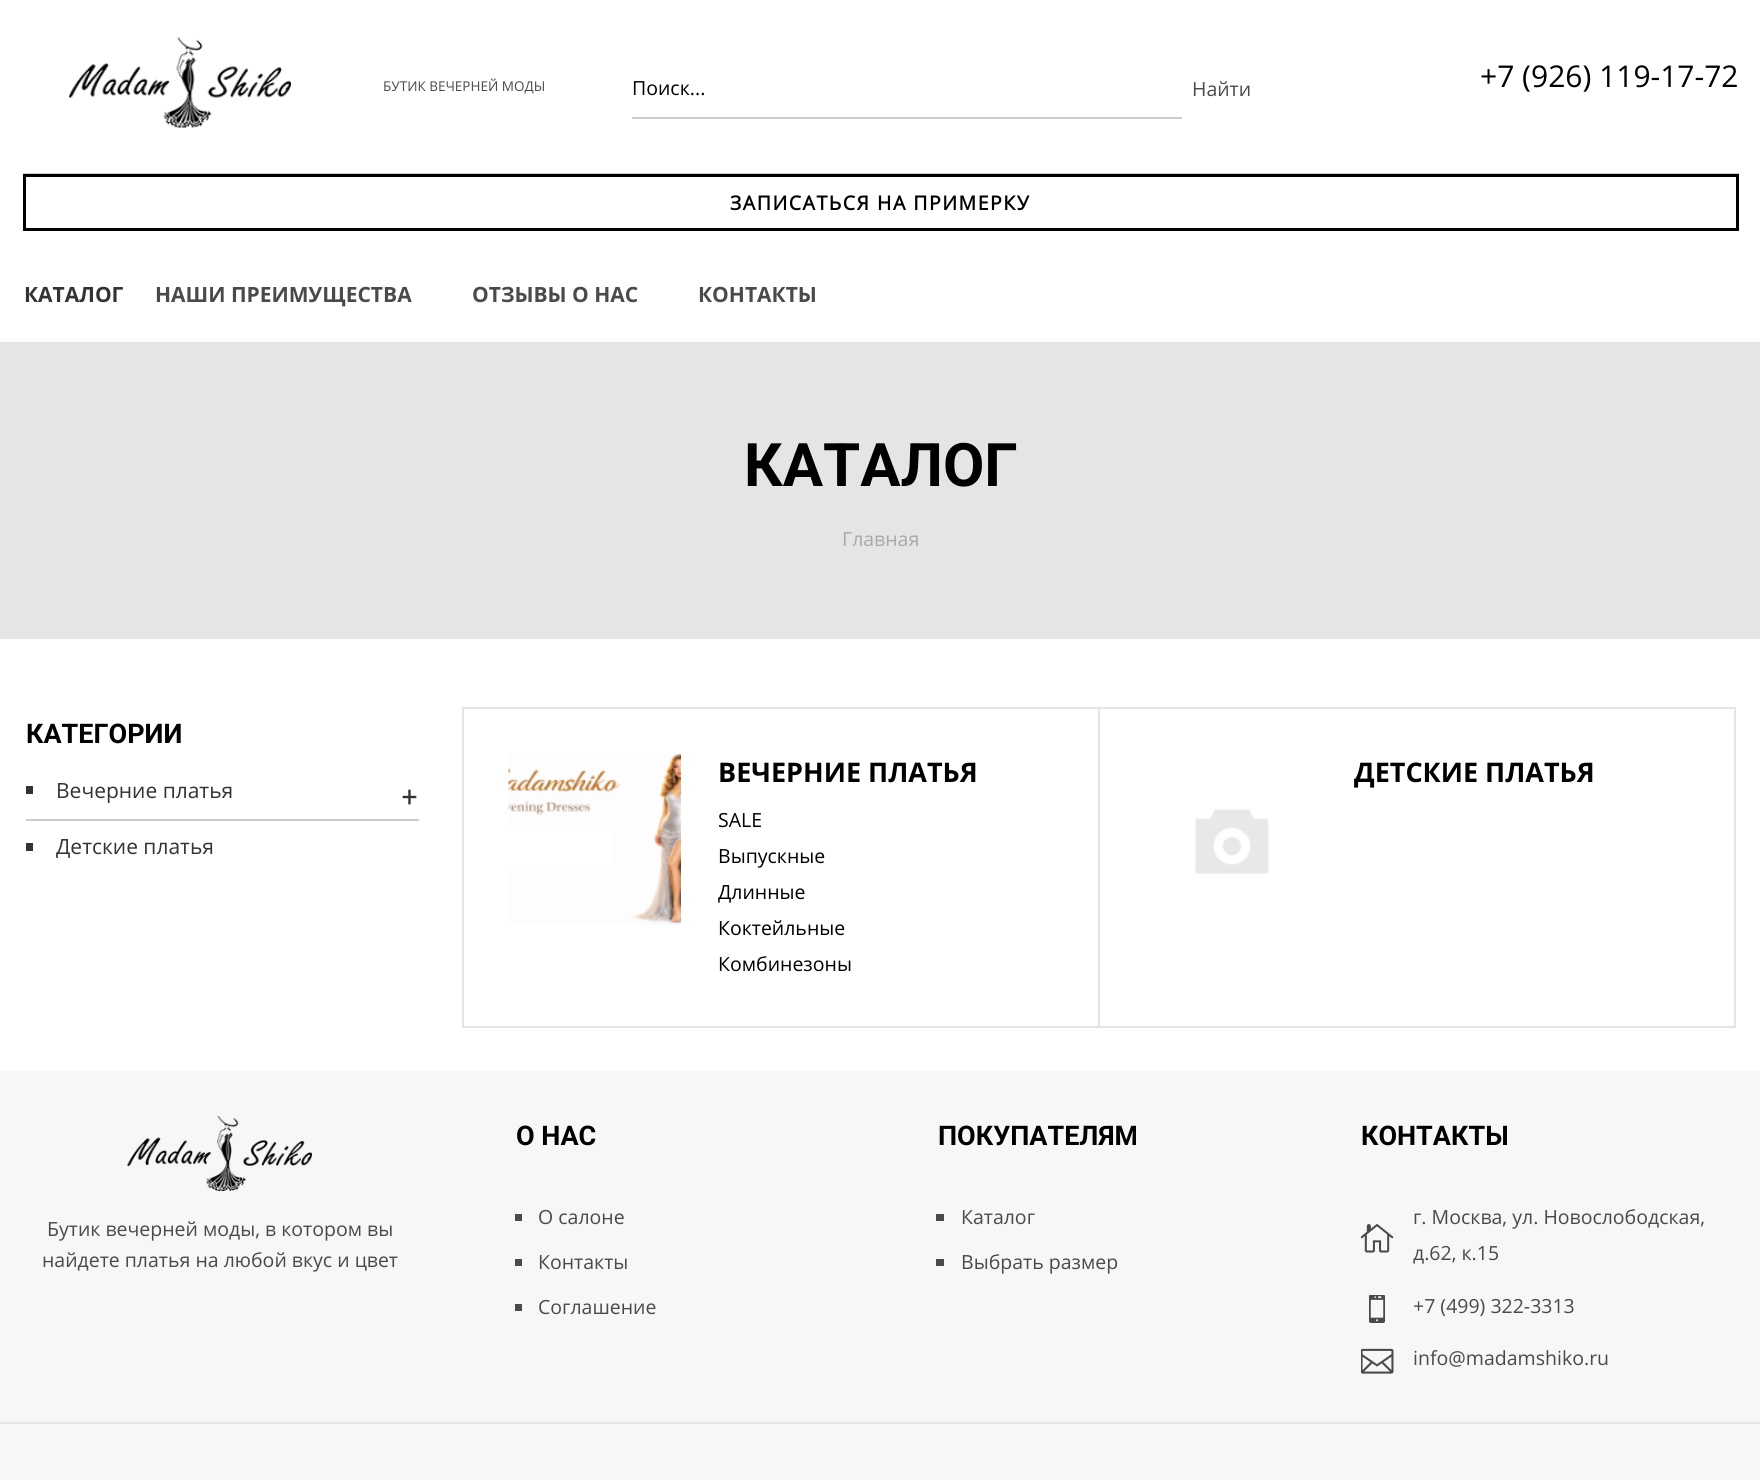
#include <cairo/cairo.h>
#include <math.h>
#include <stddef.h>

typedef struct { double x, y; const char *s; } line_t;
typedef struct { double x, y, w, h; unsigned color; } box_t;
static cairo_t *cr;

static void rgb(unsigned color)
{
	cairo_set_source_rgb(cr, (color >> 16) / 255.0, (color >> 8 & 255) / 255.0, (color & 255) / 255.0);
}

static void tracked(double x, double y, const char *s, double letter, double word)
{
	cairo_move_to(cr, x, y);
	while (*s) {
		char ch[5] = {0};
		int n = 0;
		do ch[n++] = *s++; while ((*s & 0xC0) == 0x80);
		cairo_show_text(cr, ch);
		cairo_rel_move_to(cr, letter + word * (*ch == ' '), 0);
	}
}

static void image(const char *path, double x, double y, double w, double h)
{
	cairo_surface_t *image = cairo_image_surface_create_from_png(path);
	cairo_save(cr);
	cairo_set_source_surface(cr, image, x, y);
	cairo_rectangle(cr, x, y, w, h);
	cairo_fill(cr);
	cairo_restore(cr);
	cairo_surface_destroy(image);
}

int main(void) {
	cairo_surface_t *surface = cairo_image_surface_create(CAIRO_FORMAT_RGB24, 1760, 1480);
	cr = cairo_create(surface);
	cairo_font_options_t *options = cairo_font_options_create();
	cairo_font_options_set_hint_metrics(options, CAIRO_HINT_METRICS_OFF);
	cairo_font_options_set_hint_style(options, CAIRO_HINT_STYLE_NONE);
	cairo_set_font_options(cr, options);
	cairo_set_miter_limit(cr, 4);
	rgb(0xffffff);
	cairo_paint(cr);
	rgb(0xcccccc);
	cairo_rectangle(cr, 23, 173, 1716, 1);
	cairo_fill(cr);
	image("img/1.png", 69, 37, 222, 91);
	cairo_rectangle(cr, 632, 117, 550, 2);
	cairo_fill(cr);
	cairo_rectangle(cr, 24.5, 175.5, 1713, 54);
	rgb(0x000000);
	cairo_set_line_width(cr, 3);
	cairo_stroke(cr);
	{
		static const box_t items[] = {
			{0, 342, 1760, 297, 0xe5e5e5},
			{26, 819, 393, 2, 0xcccccc},
			{26, 786, 7, 8, 0x333333},
			{26, 843, 7, 8, 0x333333},
		};
		for (size_t i = 0; i < sizeof items / sizeof *items; i++) {
			rgb(items[i].color);
			cairo_rectangle(cr, items[i].x, items[i].y, items[i].w, items[i].h);
			cairo_fill(cr);
		}
	}
	cairo_rectangle(cr, 463, 708, 636, 319);
	rgb(0xe5e5e5);
	cairo_set_line_width(cr, 2);
	cairo_stroke(cr);
	image("img/2.png", 508, 753, 173, 172);
	cairo_rectangle(cr, 1099, 708, 636, 319);
	cairo_stroke(cr);
	image("img/3.png", 1195, 809, 74, 65);
	rgb(0xf7f7f7);
	cairo_rectangle(cr, 0, 1071, 1760, 409);
	cairo_fill(cr);
	image("img/4.png", 127, 1116, 185, 75);
	{
		static const box_t items[] = {
			{515, 1214, 7, 7, 0x4a4a4a},
			{515, 1259, 7, 7, 0x4a4a4a},
			{515, 1304, 7, 7, 0x4a4a4a},
			{936, 1214, 8, 7, 0x4a4a4a},
			{936, 1259, 8, 7, 0x4a4a4a},
		};
		for (size_t i = 0; i < sizeof items / sizeof *items; i++) {
			rgb(items[i].color);
			cairo_rectangle(cr, items[i].x, items[i].y, items[i].w, items[i].h);
			cairo_fill(cr);
		}
	}
	image("img/5.png", 1361, 1224, 33, 29);
	image("img/6.png", 1369, 1295, 16, 28);
	image("img/7.png", 1361, 1348, 33, 26);
	rgb(0xe5e5e5);
	cairo_rectangle(cr, 0, 1422, 1760, 2);
	cairo_fill(cr);
	cairo_select_font_face(cr, "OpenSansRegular", CAIRO_FONT_SLANT_NORMAL, CAIRO_FONT_WEIGHT_NORMAL);
	cairo_set_font_size(cr, 13.5);
	rgb(0x4a4a4a);
	cairo_move_to(cr, 383, 91);
	cairo_show_text(cr, "БУТИК ВЕЧЕРНЕЙ МОДЫ");
	cairo_set_font_size(cr, 19.5);
	rgb(0x000000);
	cairo_move_to(cr, 632, 95);
	cairo_show_text(cr, "Поиск...");
	rgb(0x4a4a4a);
	cairo_move_to(cr, 1192, 96);
	cairo_show_text(cr, "Найти");
	cairo_set_font_size(cr, 30);
	rgb(0x000000);
	cairo_move_to(cr, 1480, 87);
	cairo_show_text(cr, "+7 (926) 119-17-72");
	cairo_select_font_face(cr, "OpenSansRegular", CAIRO_FONT_SLANT_NORMAL, CAIRO_FONT_WEIGHT_BOLD);
	cairo_set_font_size(cr, 19.5);
	tracked(730, 210, "ЗАПИСАТЬСЯ НА ПРИМЕРКУ", 1.5, 0);
	cairo_select_font_face(cr, "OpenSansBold", CAIRO_FONT_SLANT_NORMAL, CAIRO_FONT_WEIGHT_BOLD);
	cairo_set_font_size(cr, 21);
	rgb(0x333333);
	cairo_move_to(cr, 24, 302);
	cairo_show_text(cr, "КАТАЛОГ");
	rgb(0x4a4a4a);
	{
		static const line_t items[] = {
			{155, 302, "НАШИ ПРЕИМУЩЕСТВА"},
			{472, 302, "ОТЗЫВЫ О НАС"},
			{698, 302, "КОНТАКТЫ"},
		};
		for (size_t i = 0; i < sizeof items / sizeof *items; i++) {
			cairo_move_to(cr, items[i].x, items[i].y);
			cairo_show_text(cr, items[i].s);
		}
	}
	cairo_select_font_face(cr, "Roboto", CAIRO_FONT_SLANT_NORMAL, CAIRO_FONT_WEIGHT_BOLD);
	cairo_set_font_size(cr, 60);
	rgb(0x000000);
	cairo_move_to(cr, 744, 486);
	cairo_show_text(cr, "КАТАЛОГ");
	cairo_select_font_face(cr, "OpenSansRegular", CAIRO_FONT_SLANT_NORMAL, CAIRO_FONT_WEIGHT_NORMAL);
	cairo_set_font_size(cr, 19.5);
	rgb(0xa9a9a9);
	cairo_move_to(cr, 842, 546);
	cairo_show_text(cr, "Главная");
	cairo_select_font_face(cr, "Roboto", CAIRO_FONT_SLANT_NORMAL, CAIRO_FONT_WEIGHT_BOLD);
	cairo_set_font_size(cr, 27);
	rgb(0x000000);
	cairo_move_to(cr, 26, 743);
	cairo_show_text(cr, "КАТЕГОРИИ");
	cairo_select_font_face(cr, "OpenSansRegular", CAIRO_FONT_SLANT_NORMAL, CAIRO_FONT_WEIGHT_NORMAL);
	cairo_set_font_size(cr, 21);
	rgb(0x333333);
	cairo_move_to(cr, 56, 798);
	cairo_show_text(cr, "Вечерние платья");
	cairo_select_font_face(cr, "Ubuntu", CAIRO_FONT_SLANT_NORMAL, CAIRO_FONT_WEIGHT_NORMAL);
	cairo_set_font_size(cr, 30);
	cairo_move_to(cr, 401, 806);
	cairo_show_text(cr, "+");
	cairo_select_font_face(cr, "OpenSansRegular", CAIRO_FONT_SLANT_NORMAL, CAIRO_FONT_WEIGHT_NORMAL);
	cairo_set_font_size(cr, 21);
	cairo_move_to(cr, 56, 854);
	cairo_show_text(cr, "Детские платья");
	cairo_select_font_face(cr, "OpenSansBold", CAIRO_FONT_SLANT_NORMAL, CAIRO_FONT_WEIGHT_BOLD);
	cairo_set_font_size(cr, 27);
	rgb(0x000000);
	cairo_move_to(cr, 718, 782);
	cairo_show_text(cr, "ВЕЧЕРНИЕ ПЛАТЬЯ");
	cairo_select_font_face(cr, "OpenSansRegular", CAIRO_FONT_SLANT_NORMAL, CAIRO_FONT_WEIGHT_NORMAL);
	cairo_set_font_size(cr, 19.5);
	{
		static const line_t items[] = {
			{718, 827, "SALE"},
			{718, 863, "Выпускные"},
			{718, 899, "Длинные"},
			{718, 935, "Коктейльные"},
			{718, 971, "Комбинезоны"},
		};
		for (size_t i = 0; i < sizeof items / sizeof *items; i++) {
			cairo_move_to(cr, items[i].x, items[i].y);
			cairo_show_text(cr, items[i].s);
		}
	}
	cairo_select_font_face(cr, "OpenSansBold", CAIRO_FONT_SLANT_NORMAL, CAIRO_FONT_WEIGHT_BOLD);
	cairo_set_font_size(cr, 27);
	cairo_move_to(cr, 1354, 782);
	cairo_show_text(cr, "ДЕТСКИЕ ПЛАТЬЯ");
	cairo_select_font_face(cr, "OpenSansRegular", CAIRO_FONT_SLANT_NORMAL, CAIRO_FONT_WEIGHT_NORMAL);
	cairo_set_font_size(cr, 19.5);
	rgb(0x4a4a4a);
	cairo_move_to(cr, 47, 1236);
	cairo_show_text(cr, "Бутик вечерней моды, в котором вы");
	cairo_move_to(cr, 42, 1267);
	cairo_show_text(cr, "найдете платья на любой вкус и цвет");
	cairo_select_font_face(cr, "Roboto", CAIRO_FONT_SLANT_NORMAL, CAIRO_FONT_WEIGHT_BOLD);
	cairo_set_font_size(cr, 27);
	rgb(0x000000);
	cairo_move_to(cr, 516, 1145);
	cairo_show_text(cr, "О НАС");
	cairo_select_font_face(cr, "OpenSansRegular", CAIRO_FONT_SLANT_NORMAL, CAIRO_FONT_WEIGHT_NORMAL);
	cairo_set_font_size(cr, 19.5);
	rgb(0x4a4a4a);
	{
		static const line_t items[] = {
			{538, 1224, "О салоне"},
			{538, 1269, "Контакты"},
			{538, 1314, "Соглашение"},
		};
		for (size_t i = 0; i < sizeof items / sizeof *items; i++) {
			cairo_move_to(cr, items[i].x, items[i].y);
			cairo_show_text(cr, items[i].s);
		}
	}
	cairo_select_font_face(cr, "Roboto", CAIRO_FONT_SLANT_NORMAL, CAIRO_FONT_WEIGHT_BOLD);
	cairo_set_font_size(cr, 27);
	rgb(0x000000);
	cairo_move_to(cr, 938, 1145);
	cairo_show_text(cr, "ПОКУПАТЕЛЯМ");
	cairo_select_font_face(cr, "OpenSansRegular", CAIRO_FONT_SLANT_NORMAL, CAIRO_FONT_WEIGHT_NORMAL);
	cairo_set_font_size(cr, 19.5);
	rgb(0x4a4a4a);
	cairo_move_to(cr, 961, 1224);
	cairo_show_text(cr, "Каталог");
	cairo_move_to(cr, 961, 1269);
	cairo_show_text(cr, "Выбрать размер");
	cairo_select_font_face(cr, "Roboto", CAIRO_FONT_SLANT_NORMAL, CAIRO_FONT_WEIGHT_BOLD);
	cairo_set_font_size(cr, 27);
	rgb(0x000000);
	cairo_move_to(cr, 1361, 1145);
	cairo_show_text(cr, "КОНТАКТЫ");
	cairo_select_font_face(cr, "OpenSansRegular", CAIRO_FONT_SLANT_NORMAL, CAIRO_FONT_WEIGHT_NORMAL);
	cairo_set_font_size(cr, 19.5);
	rgb(0x4a4a4a);
	{
		static const line_t items[] = {
			{1413, 1224, "г. Москва, ул. Новослободская,"},
			{1413, 1260, "д.62, к.15"},
			{1413, 1313, "+7 (499) 322-3313"},
			{1413, 1365, "info@madamshiko.ru"},
		};
		for (size_t i = 0; i < sizeof items / sizeof *items; i++) {
			cairo_move_to(cr, items[i].x, items[i].y);
			cairo_show_text(cr, items[i].s);
		}
	}
	cairo_surface_write_to_png(surface, "page.png");
	cairo_font_options_destroy(options);
	cairo_destroy(cr);
	cairo_surface_destroy(surface);
	return 0;
}
